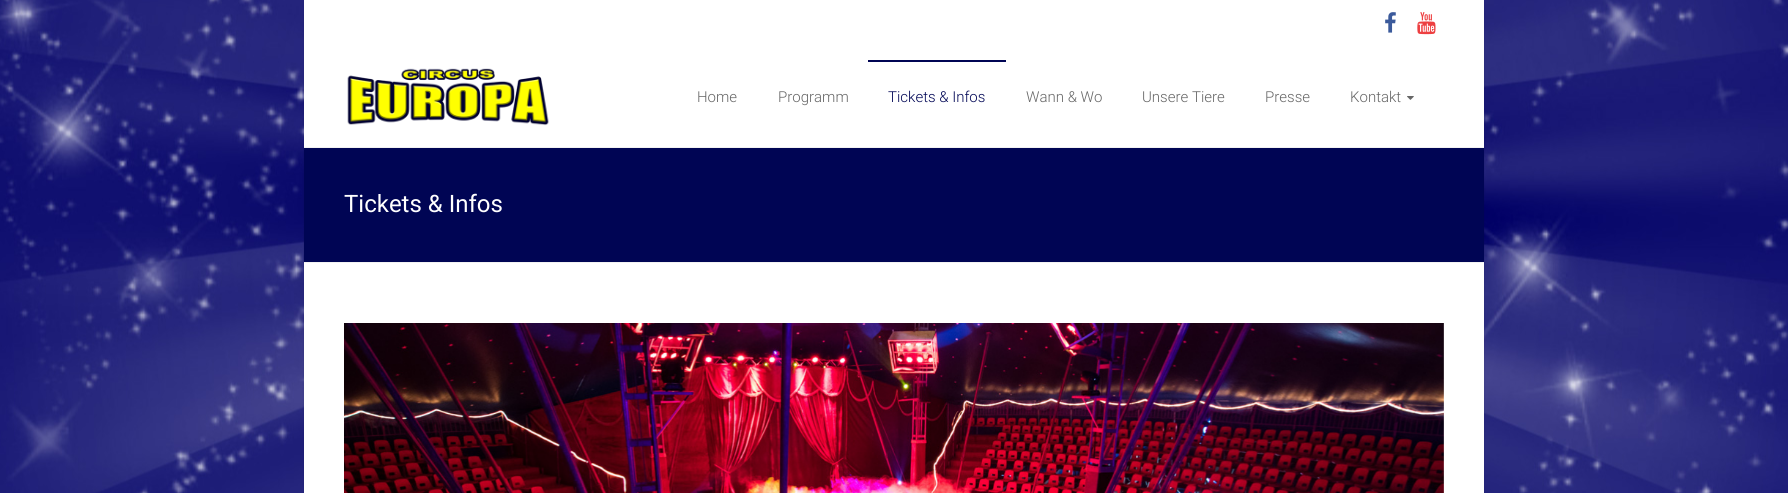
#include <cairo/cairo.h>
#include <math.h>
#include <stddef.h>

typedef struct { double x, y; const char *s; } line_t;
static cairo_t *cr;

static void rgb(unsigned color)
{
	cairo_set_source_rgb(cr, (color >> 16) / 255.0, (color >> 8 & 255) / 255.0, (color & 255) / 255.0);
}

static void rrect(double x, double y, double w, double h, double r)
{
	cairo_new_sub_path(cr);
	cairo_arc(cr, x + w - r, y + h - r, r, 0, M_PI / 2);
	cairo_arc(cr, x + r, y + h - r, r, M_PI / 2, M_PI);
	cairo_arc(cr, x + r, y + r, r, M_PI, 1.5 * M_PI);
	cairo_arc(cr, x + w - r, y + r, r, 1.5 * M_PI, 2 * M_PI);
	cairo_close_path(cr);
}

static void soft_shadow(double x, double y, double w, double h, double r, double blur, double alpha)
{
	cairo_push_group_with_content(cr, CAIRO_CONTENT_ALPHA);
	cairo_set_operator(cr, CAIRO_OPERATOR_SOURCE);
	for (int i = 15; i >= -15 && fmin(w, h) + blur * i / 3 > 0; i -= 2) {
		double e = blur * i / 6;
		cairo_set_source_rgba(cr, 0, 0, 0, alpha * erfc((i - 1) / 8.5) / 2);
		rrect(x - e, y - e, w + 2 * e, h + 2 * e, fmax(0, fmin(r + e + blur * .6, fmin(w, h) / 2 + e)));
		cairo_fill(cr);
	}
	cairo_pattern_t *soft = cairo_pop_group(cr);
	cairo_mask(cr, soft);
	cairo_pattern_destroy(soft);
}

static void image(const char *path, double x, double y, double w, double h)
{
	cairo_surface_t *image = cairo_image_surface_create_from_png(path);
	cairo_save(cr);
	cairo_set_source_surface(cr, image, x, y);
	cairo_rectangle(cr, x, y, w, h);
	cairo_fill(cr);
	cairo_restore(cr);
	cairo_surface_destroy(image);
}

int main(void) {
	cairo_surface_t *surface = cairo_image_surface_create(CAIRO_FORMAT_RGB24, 1788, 493);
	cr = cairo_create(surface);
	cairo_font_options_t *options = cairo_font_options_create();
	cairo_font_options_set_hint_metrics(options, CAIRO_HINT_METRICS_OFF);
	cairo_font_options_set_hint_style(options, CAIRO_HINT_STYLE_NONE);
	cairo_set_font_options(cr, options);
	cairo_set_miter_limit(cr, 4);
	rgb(0xffffff);
	cairo_paint(cr);
	image("img/1.png", 0, 0, 1788, 493);
	rgb(0x000000);
	soft_shadow(304, 1, 1180, 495, 0, 1, 0.1);
	rgb(0xffffff);
	cairo_rectangle(cr, 304, 0, 1180, 493);
	cairo_fill(cr);
	rgb(0xf2f2f2);
	cairo_rectangle(cr, 304, 147, 1180, 1);
	cairo_fill(cr);
	image("img/2.png", 1385, 12, 11, 21);
	image("img/3.png", 1417, 12, 19, 23);
	image("img/4.png", 347, 68, 202, 58);
	rgb(0x000554);
	cairo_rectangle(cr, 868, 60, 138, 2);
	cairo_fill(cr);
	image("img/5.png", 1407, 96, 7, 4);
	cairo_rectangle(cr, 304, 148, 1180, 114);
	cairo_fill(cr);
	rgb(0xf2f2f2);
	cairo_rectangle(cr, 304, 262, 1180, 1);
	cairo_fill(cr);
	image("img/6.png", 344, 323, 1100, 170);
	cairo_select_font_face(cr, "Roboto Light", CAIRO_FONT_SLANT_NORMAL, CAIRO_FONT_WEIGHT_NORMAL);
	cairo_set_font_size(cr, 15);
	rgb(0x666666);
	cairo_move_to(cr, 697, 102);
	cairo_show_text(cr, "Home");
	cairo_move_to(cr, 778, 102);
	cairo_show_text(cr, "Programm");
	rgb(0x000554);
	cairo_move_to(cr, 888, 102);
	cairo_show_text(cr, "Tickets & Infos");
	rgb(0x666666);
	{
		static const line_t items[] = {
			{1026, 102, "Wann & Wo"},
			{1142, 102, "Unsere Tiere"},
			{1265, 102, "Presse"},
			{1350, 102, "Kontakt"},
		};
		for (size_t i = 0; i < sizeof items / sizeof *items; i++) {
			cairo_move_to(cr, items[i].x, items[i].y);
			cairo_show_text(cr, items[i].s);
		}
	}
	cairo_select_font_face(cr, "Roboto", CAIRO_FONT_SLANT_NORMAL, CAIRO_FONT_WEIGHT_NORMAL);
	cairo_set_font_size(cr, 24);
	rgb(0xffffff);
	cairo_move_to(cr, 344, 212);
	cairo_show_text(cr, "Tickets & Infos");
	cairo_surface_write_to_png(surface, "page.png");
	cairo_font_options_destroy(options);
	cairo_destroy(cr);
	cairo_surface_destroy(surface);
	return 0;
}
